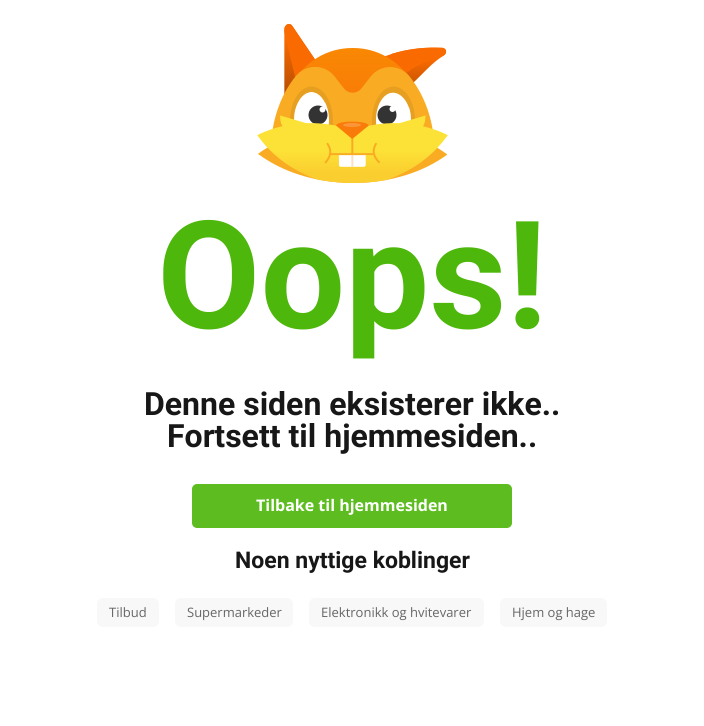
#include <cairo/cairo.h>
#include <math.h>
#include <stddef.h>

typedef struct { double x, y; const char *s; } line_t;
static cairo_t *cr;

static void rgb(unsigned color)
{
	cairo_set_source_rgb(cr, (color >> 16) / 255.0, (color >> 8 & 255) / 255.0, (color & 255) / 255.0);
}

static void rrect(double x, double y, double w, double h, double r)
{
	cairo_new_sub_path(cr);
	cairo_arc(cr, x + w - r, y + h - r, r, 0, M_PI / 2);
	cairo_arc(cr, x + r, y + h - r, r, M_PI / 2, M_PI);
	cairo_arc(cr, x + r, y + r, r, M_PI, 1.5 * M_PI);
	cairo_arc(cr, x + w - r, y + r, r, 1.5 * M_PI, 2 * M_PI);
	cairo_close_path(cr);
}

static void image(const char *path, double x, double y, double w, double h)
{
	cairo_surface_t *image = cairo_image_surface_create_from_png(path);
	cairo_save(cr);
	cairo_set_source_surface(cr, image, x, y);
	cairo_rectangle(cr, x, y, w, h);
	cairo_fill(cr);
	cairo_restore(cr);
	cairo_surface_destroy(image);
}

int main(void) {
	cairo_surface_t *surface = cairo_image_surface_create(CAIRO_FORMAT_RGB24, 704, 726);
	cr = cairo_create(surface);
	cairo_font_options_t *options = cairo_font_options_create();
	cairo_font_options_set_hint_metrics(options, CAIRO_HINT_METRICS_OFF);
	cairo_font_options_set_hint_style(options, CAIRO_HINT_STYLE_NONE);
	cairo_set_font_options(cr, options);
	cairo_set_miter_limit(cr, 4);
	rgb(0xffffff);
	cairo_paint(cr);
	image("img/1.png", 257, 24, 191, 159);
	rgb(0x5dbd20);
	rrect(193, 485, 318, 42, 4);
	cairo_fill_preserve(cr);
	cairo_stroke(cr);
	rgb(0xf8f8f8);
	rrect(97, 598, 62, 29, 6);
	cairo_fill(cr);
	rrect(175, 598, 118, 29, 6);
	cairo_fill(cr);
	rrect(309, 598, 175, 29, 6);
	cairo_fill(cr);
	rrect(500, 598, 107, 29, 6);
	cairo_fill(cr);
	cairo_select_font_face(cr, "Roboto", CAIRO_FONT_SLANT_NORMAL, CAIRO_FONT_WEIGHT_BOLD);
	cairo_set_font_size(cr, 150);
	rgb(0x4eb70b);
	cairo_move_to(cr, 157, 328);
	cairo_show_text(cr, "Oops!");
	cairo_set_font_size(cr, 32);
	rgb(0x171717);
	cairo_move_to(cr, 144, 415);
	cairo_show_text(cr, "Denne siden eksisterer ikke..");
	cairo_move_to(cr, 167, 447);
	cairo_show_text(cr, "Fortsett til hjemmesiden..");
	cairo_select_font_face(cr, "Open Sans", CAIRO_FONT_SLANT_NORMAL, CAIRO_FONT_WEIGHT_BOLD);
	cairo_set_font_size(cr, 16);
	rgb(0xffffff);
	cairo_move_to(cr, 256, 511);
	cairo_show_text(cr, "Tilbake til hjemmesiden");
	cairo_select_font_face(cr, "Roboto", CAIRO_FONT_SLANT_NORMAL, CAIRO_FONT_WEIGHT_BOLD);
	cairo_set_font_size(cr, 23);
	rgb(0x171717);
	cairo_move_to(cr, 235, 568);
	cairo_show_text(cr, "Noen nyttige koblinger");
	cairo_select_font_face(cr, "Open Sans", CAIRO_FONT_SLANT_NORMAL, CAIRO_FONT_WEIGHT_NORMAL);
	cairo_set_font_size(cr, 13);
	rgb(0x666666);
	{
		static const line_t items[] = {
			{109, 617, "Tilbud"},
			{187, 617, "Supermarkeder"},
			{321, 617, "Elektronikk og hvitevarer"},
			{512, 617, "Hjem og hage"},
		};
		for (size_t i = 0; i < sizeof items / sizeof *items; i++) {
			cairo_move_to(cr, items[i].x, items[i].y);
			cairo_show_text(cr, items[i].s);
		}
	}
	cairo_surface_write_to_png(surface, "page.png");
	cairo_font_options_destroy(options);
	cairo_destroy(cr);
	cairo_surface_destroy(surface);
	return 0;
}
